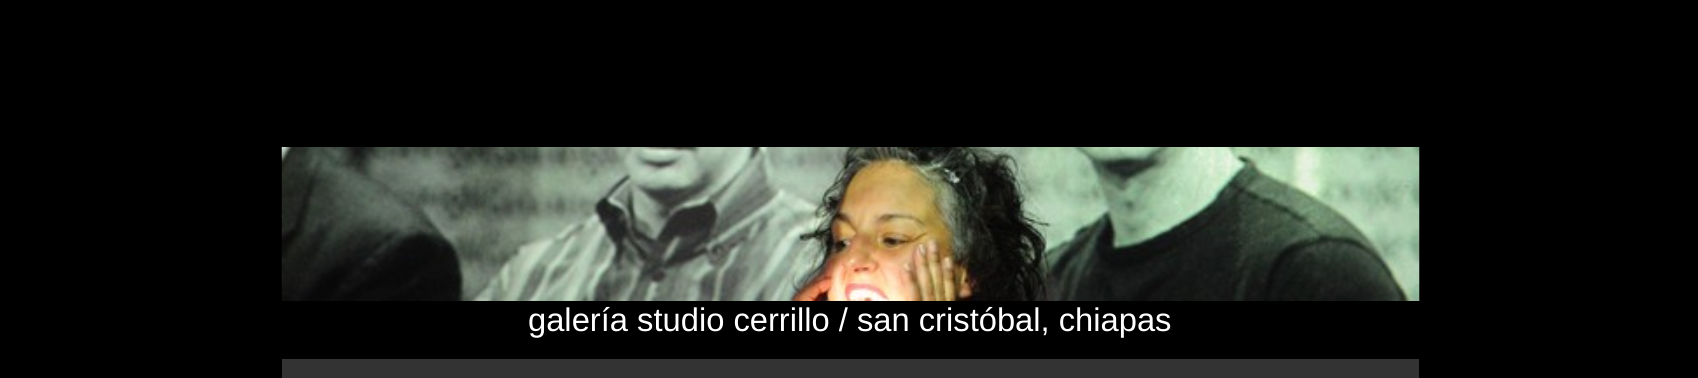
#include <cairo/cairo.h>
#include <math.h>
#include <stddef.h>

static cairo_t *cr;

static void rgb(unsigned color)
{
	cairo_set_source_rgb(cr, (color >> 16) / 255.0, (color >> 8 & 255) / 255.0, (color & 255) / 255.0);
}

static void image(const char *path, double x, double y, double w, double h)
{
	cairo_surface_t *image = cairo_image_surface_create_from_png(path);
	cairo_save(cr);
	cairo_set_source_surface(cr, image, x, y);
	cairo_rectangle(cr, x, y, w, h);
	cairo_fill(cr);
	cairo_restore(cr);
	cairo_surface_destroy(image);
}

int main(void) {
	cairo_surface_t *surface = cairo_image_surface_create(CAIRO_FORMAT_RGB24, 1698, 378);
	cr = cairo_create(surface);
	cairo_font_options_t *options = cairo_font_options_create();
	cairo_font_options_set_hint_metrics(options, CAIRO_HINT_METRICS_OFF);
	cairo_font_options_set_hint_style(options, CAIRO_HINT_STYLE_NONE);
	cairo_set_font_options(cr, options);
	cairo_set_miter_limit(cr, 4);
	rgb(0x000000);
	cairo_paint(cr);
	image("img/1.png", 281, 147, 1139, 154);
	rgb(0x333333);
	cairo_rectangle(cr, 282, 359, 1137, 19);
	cairo_fill(cr);
	cairo_select_font_face(cr, "Liberation Sans", CAIRO_FONT_SLANT_NORMAL, CAIRO_FONT_WEIGHT_NORMAL);
	cairo_set_font_size(cr, 32.7);
	rgb(0xffffff);
	cairo_move_to(cr, 528, 331);
	cairo_show_text(cr, "galería studio cerrillo / san cristóbal, chiapas");
	cairo_surface_write_to_png(surface, "page.png");
	cairo_font_options_destroy(options);
	cairo_destroy(cr);
	cairo_surface_destroy(surface);
	return 0;
}
